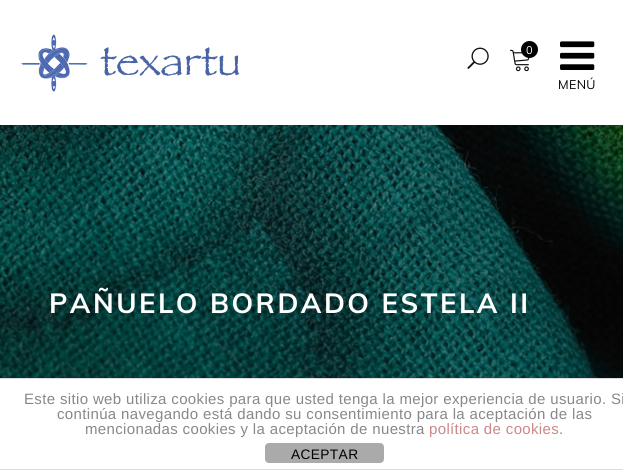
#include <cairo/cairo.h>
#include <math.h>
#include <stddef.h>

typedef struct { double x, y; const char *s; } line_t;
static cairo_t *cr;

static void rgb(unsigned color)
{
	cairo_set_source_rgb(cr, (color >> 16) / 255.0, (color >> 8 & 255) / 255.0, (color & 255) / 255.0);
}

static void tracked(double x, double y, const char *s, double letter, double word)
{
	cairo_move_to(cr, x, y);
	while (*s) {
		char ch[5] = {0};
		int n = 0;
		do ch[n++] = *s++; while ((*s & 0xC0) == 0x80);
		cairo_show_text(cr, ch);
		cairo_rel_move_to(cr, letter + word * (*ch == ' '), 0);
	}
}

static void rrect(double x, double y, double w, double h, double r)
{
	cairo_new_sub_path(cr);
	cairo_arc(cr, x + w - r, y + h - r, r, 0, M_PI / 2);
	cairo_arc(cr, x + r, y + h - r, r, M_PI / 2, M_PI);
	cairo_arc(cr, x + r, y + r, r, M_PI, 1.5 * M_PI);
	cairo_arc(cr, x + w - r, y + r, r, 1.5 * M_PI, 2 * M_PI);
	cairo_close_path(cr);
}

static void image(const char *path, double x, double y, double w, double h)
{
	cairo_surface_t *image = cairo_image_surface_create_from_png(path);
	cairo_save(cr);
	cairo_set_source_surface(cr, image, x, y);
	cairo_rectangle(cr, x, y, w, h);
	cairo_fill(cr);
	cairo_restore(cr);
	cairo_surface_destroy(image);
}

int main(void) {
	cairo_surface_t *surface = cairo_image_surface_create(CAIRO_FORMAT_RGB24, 623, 470);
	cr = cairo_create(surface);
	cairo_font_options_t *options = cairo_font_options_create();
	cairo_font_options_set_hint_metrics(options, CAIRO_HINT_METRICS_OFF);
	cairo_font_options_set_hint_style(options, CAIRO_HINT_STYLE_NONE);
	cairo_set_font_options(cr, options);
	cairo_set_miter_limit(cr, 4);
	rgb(0xffffff);
	cairo_paint(cr);
	image("img/1.png", 20, 34, 220, 58);
	image("img/2.png", 467, 47, 22, 22);
	image("img/3.png", 510, 49, 20, 23);
	rgb(0x000000);
	cairo_arc(cr, 529.5, 49.5, 8.5, 0, 2 * M_PI);
	cairo_fill(cr);
	image("img/4.png", 560, 41, 35, 29);
	image("img/5.png", 0, 125, 623, 253);
	rgb(0xdddddd);
	cairo_rectangle(cr, 0, 378, 623, 1);
	cairo_fill(cr);
	cairo_rectangle(cr, 0, 469, 623, 1);
	cairo_fill(cr);
	rgb(0xaaaaaa);
	rrect(265, 443, 119, 20, 4);
	cairo_fill(cr);
	cairo_select_font_face(cr, "Muli", CAIRO_FONT_SLANT_NORMAL, CAIRO_FONT_WEIGHT_NORMAL);
	cairo_set_font_size(cr, 11);
	rgb(0xffffff);
	tracked(526, 54, "0", 0.35, 0);
	cairo_set_font_size(cr, 12.5);
	rgb(0x000000);
	tracked(558, 89, "MENÚ", 0.35, 0);
	cairo_select_font_face(cr, "Muli", CAIRO_FONT_SLANT_NORMAL, CAIRO_FONT_WEIGHT_BOLD);
	cairo_set_font_size(cr, 27.5);
	rgb(0xffffff);
	tracked(49, 313, "PAÑUELO BORDADO ESTELA II", 2.5, 0);
	cairo_select_font_face(cr, "Liberation Sans", CAIRO_FONT_SLANT_NORMAL, CAIRO_FONT_WEIGHT_NORMAL);
	cairo_set_font_size(cr, 15);
	rgb(0x888888);
	{
		static const line_t items[] = {
			{24, 404, "Este sitio web utiliza cookies para que usted tenga la mejor experiencia de usuario. Si"},
			{57, 419, "continúa navegando está dando su consentimiento para la aceptación de las"},
			{85, 434, "mencionadas cookies y la aceptación de nuestra"},
		};
		for (size_t i = 0; i < sizeof items / sizeof *items; i++) {
			tracked(items[i].x, items[i].y, items[i].s, 0.35, 0);
		}
	}
	rgb(0xcc8888);
	tracked(429, 434, "política de cookies", 0.35, 0);
	rgb(0x888888);
	tracked(559, 434, ".", 0.35, 0);
	cairo_set_font_size(cr, 13.75);
	rgb(0x000000);
	tracked(291, 459, "ACEPTAR", 0.35, 0);
	cairo_surface_write_to_png(surface, "page.png");
	cairo_font_options_destroy(options);
	cairo_destroy(cr);
	cairo_surface_destroy(surface);
	return 0;
}
